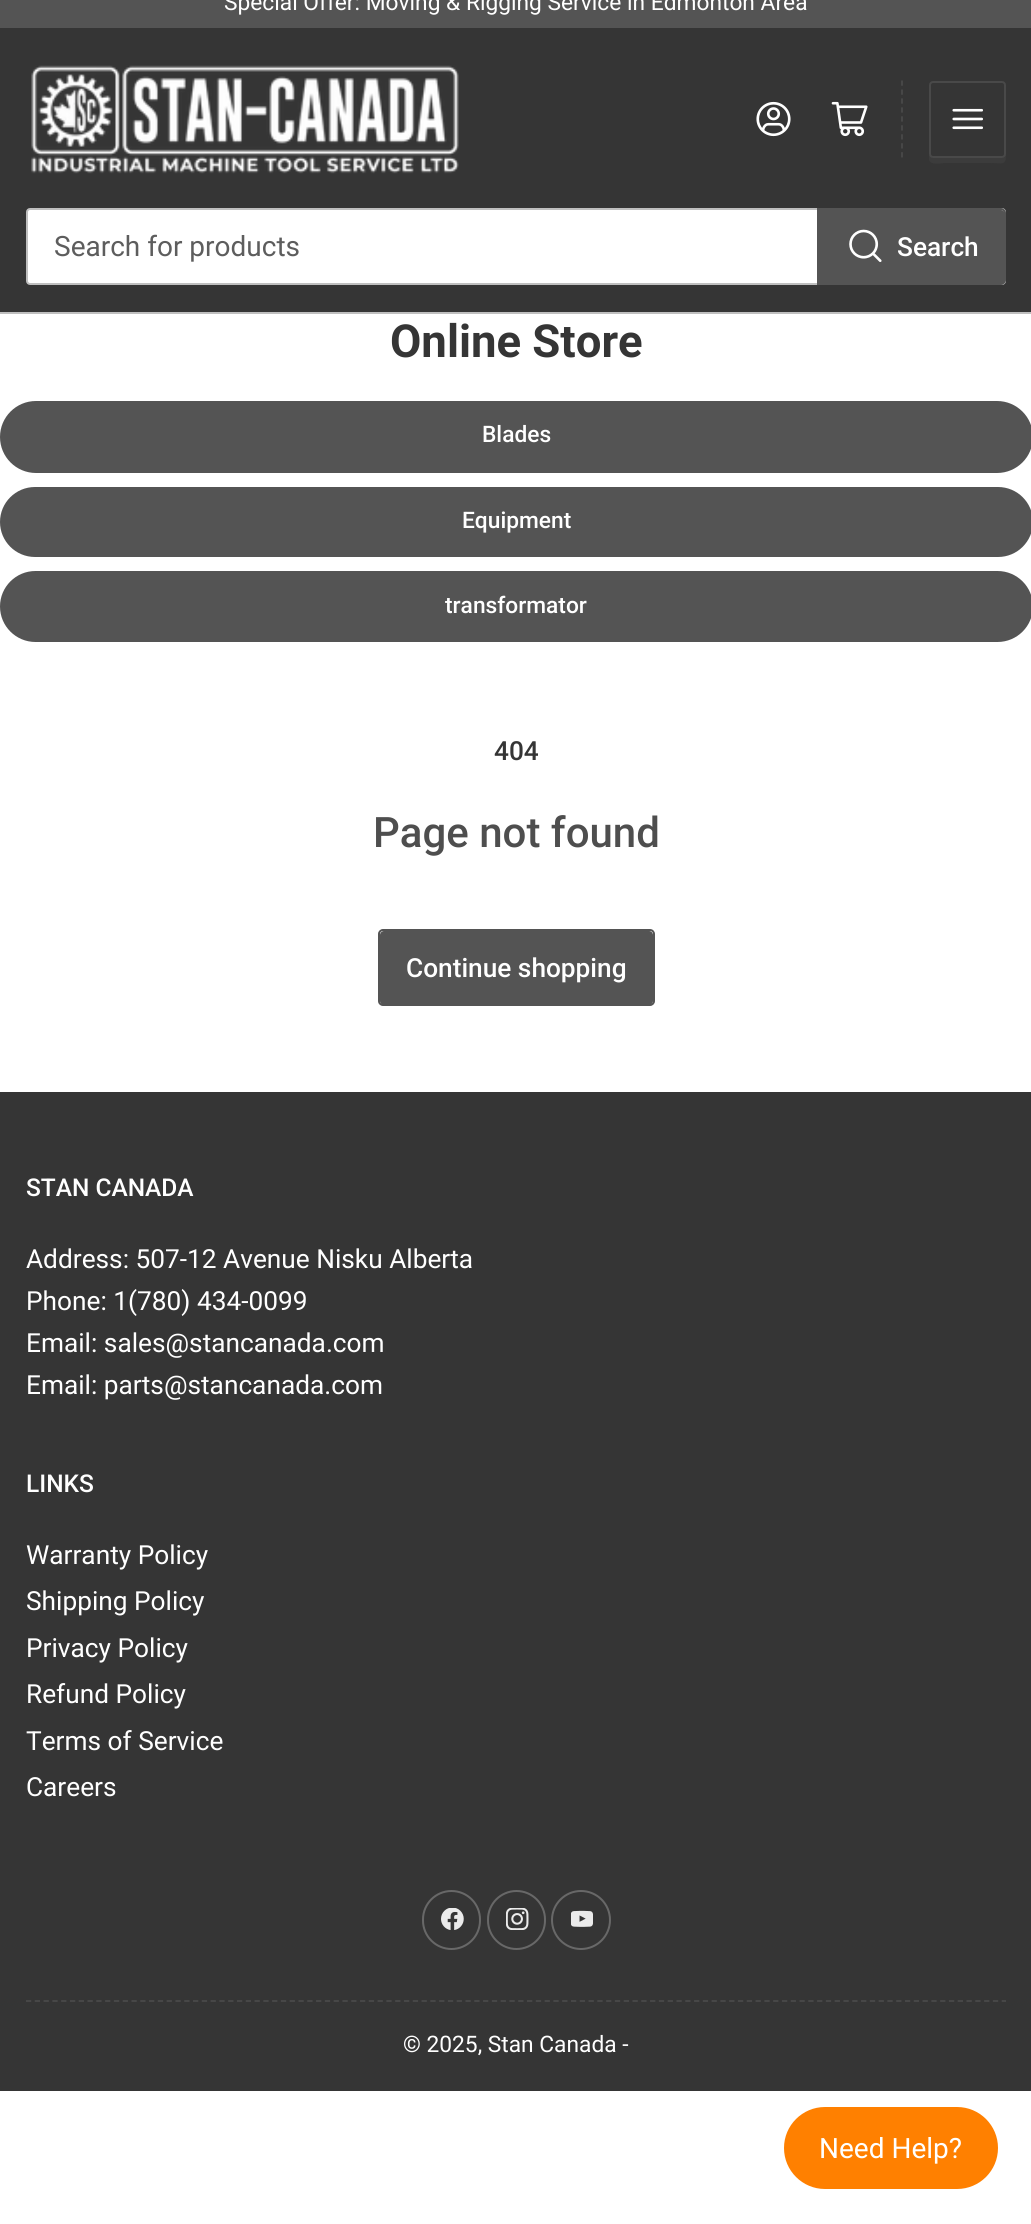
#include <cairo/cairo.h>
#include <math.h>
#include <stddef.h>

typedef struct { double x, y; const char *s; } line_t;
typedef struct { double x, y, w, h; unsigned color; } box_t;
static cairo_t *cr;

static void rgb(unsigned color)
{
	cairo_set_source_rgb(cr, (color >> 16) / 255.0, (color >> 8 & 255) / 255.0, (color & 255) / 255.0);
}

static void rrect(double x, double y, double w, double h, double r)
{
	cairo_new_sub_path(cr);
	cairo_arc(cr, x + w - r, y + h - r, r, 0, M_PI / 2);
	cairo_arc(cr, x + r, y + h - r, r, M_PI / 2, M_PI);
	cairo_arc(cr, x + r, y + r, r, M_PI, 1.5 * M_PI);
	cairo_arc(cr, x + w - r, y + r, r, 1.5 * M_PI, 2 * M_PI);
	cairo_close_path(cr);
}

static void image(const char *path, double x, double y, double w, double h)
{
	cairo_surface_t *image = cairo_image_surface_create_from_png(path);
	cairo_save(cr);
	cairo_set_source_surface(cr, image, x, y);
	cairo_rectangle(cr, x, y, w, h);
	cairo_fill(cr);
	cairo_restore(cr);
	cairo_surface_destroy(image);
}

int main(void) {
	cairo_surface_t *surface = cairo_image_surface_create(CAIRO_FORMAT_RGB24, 1031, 2224);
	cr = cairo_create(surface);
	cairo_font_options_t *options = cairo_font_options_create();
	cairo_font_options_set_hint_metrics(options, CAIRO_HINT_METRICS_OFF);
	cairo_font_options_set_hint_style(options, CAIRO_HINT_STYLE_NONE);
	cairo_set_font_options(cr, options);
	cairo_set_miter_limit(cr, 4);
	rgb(0xffffff);
	cairo_paint(cr);
	{
		static const box_t items[] = {
			{0, 0, 1031, 28, 0x545454},
			{0, 312, 1031, 2, 0xbfbfbf},
			{0, 28, 1031, 284, 0x353535},
		};
		for (size_t i = 0; i < sizeof items / sizeof *items; i++) {
			rgb(items[i].color);
			cairo_rectangle(cr, items[i].x, items[i].y, items[i].w, items[i].h);
			cairo_fill(cr);
		}
	}
	image("img/1.png", 31, 65, 428, 109);
	image("img/2.png", 756, 101, 35, 36);
	image("img/3.png", 831, 101, 37, 36);
	cairo_new_path(cr);
	cairo_move_to(cr, 902, 80.5);
	cairo_line_to(cr, 902, 157.5);
	rgb(0x494949);
	cairo_set_line_width(cr, 1.8);
	cairo_set_dash(cr, (double[]){5.25, 3.71}, 2, 0);
	cairo_stroke(cr);
	rgb(0x3c3c3c);
	cairo_new_path(cr);
	cairo_move_to(cr, 929, 89);
	cairo_line_to(cr, 929, 159);
	cairo_curve_to(cr, 929, 166, 943, 163, 944, 163);
	cairo_line_to(cr, 990, 163);
	cairo_curve_to(cr, 1002, 163, 1006, 166, 1006, 155);
	cairo_curve_to(cr, 1005, 157, 1004, 158, 1003, 158);
	cairo_line_to(cr, 933, 158);
	cairo_curve_to(cr, 931, 158, 929, 156, 929, 154);
	cairo_close_path(cr);
	cairo_fill(cr);
	rrect(930, 82, 75, 75, 3);
	cairo_set_source_rgba(cr, 1, 1, 1, 0.1);
	cairo_set_line_width(cr, 2);
	cairo_set_dash(cr, NULL, 0, 0);
	cairo_stroke(cr);
	image("img/4.png", 952, 108, 31, 22);
	rgb(0xffffff);
	rrect(27, 209, 978, 75, 3);
	cairo_fill_preserve(cr);
	rgb(0xbfbfbf);
	cairo_stroke(cr);
	cairo_new_path(cr);
	cairo_move_to(cr, 818, 209);
	cairo_line_to(cr, 1001, 209);
	cairo_curve_to(cr, 1003, 209, 1005, 211, 1005, 213);
	cairo_line_to(cr, 1005, 280);
	cairo_curve_to(cr, 1005, 282, 1003, 284, 1001, 284);
	cairo_line_to(cr, 818, 284);
	cairo_close_path(cr);
	rgb(0x545454);
	cairo_stroke(cr);
	cairo_new_path(cr);
	cairo_move_to(cr, 819, 210);
	cairo_line_to(cr, 1001, 210);
	cairo_curve_to(cr, 1003, 210, 1005, 212, 1005, 214);
	cairo_line_to(cr, 1005, 280);
	cairo_curve_to(cr, 1005, 282, 1003, 284, 1001, 284);
	cairo_line_to(cr, 819, 284);
	cairo_close_path(cr);
	cairo_fill(cr);
	image("img/5.png", 849, 229, 33, 33);
	rrect(0, 401, 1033, 72, 36);
	cairo_fill(cr);
	rrect(0, 487, 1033, 70, 35);
	cairo_fill(cr);
	rrect(0, 571, 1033, 71, 35.5);
	cairo_fill(cr);
	rrect(379, 930, 275, 75, 4);
	cairo_stroke(cr);
	rrect(380, 931, 273, 74, 4);
	cairo_fill(cr);
	rgb(0x353535);
	cairo_rectangle(cr, 0, 1092, 1031, 999);
	cairo_fill(cr);
	rrect(423, 1891, 57, 58, 28.5);
	rgb(0x686868);
	cairo_stroke(cr);
	image("img/6.png", 441, 1908, 23, 22);
	rrect(488, 1891, 57, 58, 28.5);
	cairo_stroke(cr);
	image("img/7.png", 506, 1908, 23, 22);
	cairo_arc(cr, 581, 1920, 29, 0, 2 * M_PI);
	cairo_stroke(cr);
	image("img/8.png", 571, 1910, 22, 17);
	cairo_new_path(cr);
	cairo_move_to(cr, 26, 2001);
	cairo_line_to(cr, 1006, 2001);
	rgb(0x494949);
	cairo_set_line_width(cr, 1.8);
	cairo_set_dash(cr, (double[]){5.25, 3.54}, 2, 0);
	cairo_stroke(cr);
	rgb(0xff8000);
	rrect(784, 2107, 214, 82, 41);
	cairo_fill(cr);
	cairo_select_font_face(cr, "Roboto", CAIRO_FONT_SLANT_NORMAL, CAIRO_FONT_WEIGHT_NORMAL);
	cairo_set_font_size(cr, 22.75);
	rgb(0xffffff);
	cairo_move_to(cr, 224, 10);
	cairo_show_text(cr, "Special Offer: Moving & Rigging Service in Edmonton Area");
	cairo_set_font_size(cr, 28);
	rgb(0x5d5d5d);
	cairo_move_to(cr, 54, 256);
	cairo_show_text(cr, "Search for products");
	cairo_select_font_face(cr, "Roboto Medium", CAIRO_FONT_SLANT_NORMAL, CAIRO_FONT_WEIGHT_NORMAL);
	cairo_set_font_size(cr, 26.25);
	rgb(0xffffff);
	cairo_move_to(cr, 897, 256);
	cairo_show_text(cr, "Search");
	cairo_select_font_face(cr, "Roboto", CAIRO_FONT_SLANT_NORMAL, CAIRO_FONT_WEIGHT_BOLD);
	cairo_set_font_size(cr, 45.5);
	rgb(0x353535);
	cairo_move_to(cr, 390, 357);
	cairo_show_text(cr, "Online Store");
	cairo_select_font_face(cr, "Roboto Medium", CAIRO_FONT_SLANT_NORMAL, CAIRO_FONT_WEIGHT_NORMAL);
	cairo_set_font_size(cr, 22.75);
	rgb(0xffffff);
	{
		static const line_t items[] = {
			{482, 442, "Blades"},
			{462, 528, "Equipment"},
			{445, 613, "transformator"},
		};
		for (size_t i = 0; i < sizeof items / sizeof *items; i++) {
			cairo_move_to(cr, items[i].x, items[i].y);
			cairo_show_text(cr, items[i].s);
		}
	}
	cairo_set_font_size(cr, 26.25);
	rgb(0x353535);
	cairo_move_to(cr, 494, 760);
	cairo_show_text(cr, "404");
	cairo_set_font_size(cr, 42);
	rgb(0x4e4e4e);
	cairo_move_to(cr, 373, 847);
	cairo_show_text(cr, "Page not found");
	cairo_set_font_size(cr, 26.25);
	rgb(0xffffff);
	cairo_move_to(cr, 406, 977);
	cairo_show_text(cr, "Continue shopping");
	cairo_set_font_size(cr, 24.5);
	cairo_move_to(cr, 26, 1196);
	cairo_show_text(cr, "STAN CANADA");
	cairo_select_font_face(cr, "Roboto", CAIRO_FONT_SLANT_NORMAL, CAIRO_FONT_WEIGHT_NORMAL);
	cairo_set_font_size(cr, 26.25);
	{
		static const line_t items[] = {
			{26, 1268, "Address: 507-12 Avenue Nisku Alberta"},
			{26, 1310, "Phone: 1(780) 434-0099"},
			{26, 1352, "Email: sales@stancanada.com"},
			{26, 1394, "Email: parts@stancanada.com"},
		};
		for (size_t i = 0; i < sizeof items / sizeof *items; i++) {
			cairo_move_to(cr, items[i].x, items[i].y);
			cairo_show_text(cr, items[i].s);
		}
	}
	cairo_select_font_face(cr, "Roboto Medium", CAIRO_FONT_SLANT_NORMAL, CAIRO_FONT_WEIGHT_NORMAL);
	cairo_set_font_size(cr, 24.5);
	cairo_move_to(cr, 26, 1492);
	cairo_show_text(cr, "LINKS");
	cairo_select_font_face(cr, "Roboto", CAIRO_FONT_SLANT_NORMAL, CAIRO_FONT_WEIGHT_NORMAL);
	cairo_set_font_size(cr, 26.25);
	{
		static const line_t items[] = {
			{26, 1564, "Warranty Policy"},
			{26, 1610, "Shipping Policy"},
			{26, 1657, "Privacy Policy"},
			{26, 1703, "Refund Policy"},
			{26, 1750, "Terms of Service"},
			{26, 1796, "Careers"},
		};
		for (size_t i = 0; i < sizeof items / sizeof *items; i++) {
			cairo_move_to(cr, items[i].x, items[i].y);
			cairo_show_text(cr, items[i].s);
		}
	}
	cairo_set_font_size(cr, 22.75);
	cairo_move_to(cr, 403, 2052);
	cairo_show_text(cr, "© 2025, Stan Canada -");
	cairo_set_font_size(cr, 28);
	cairo_move_to(cr, 819, 2158);
	cairo_show_text(cr, "Need Help?");
	cairo_surface_write_to_png(surface, "page.png");
	cairo_font_options_destroy(options);
	cairo_destroy(cr);
	cairo_surface_destroy(surface);
	return 0;
}
